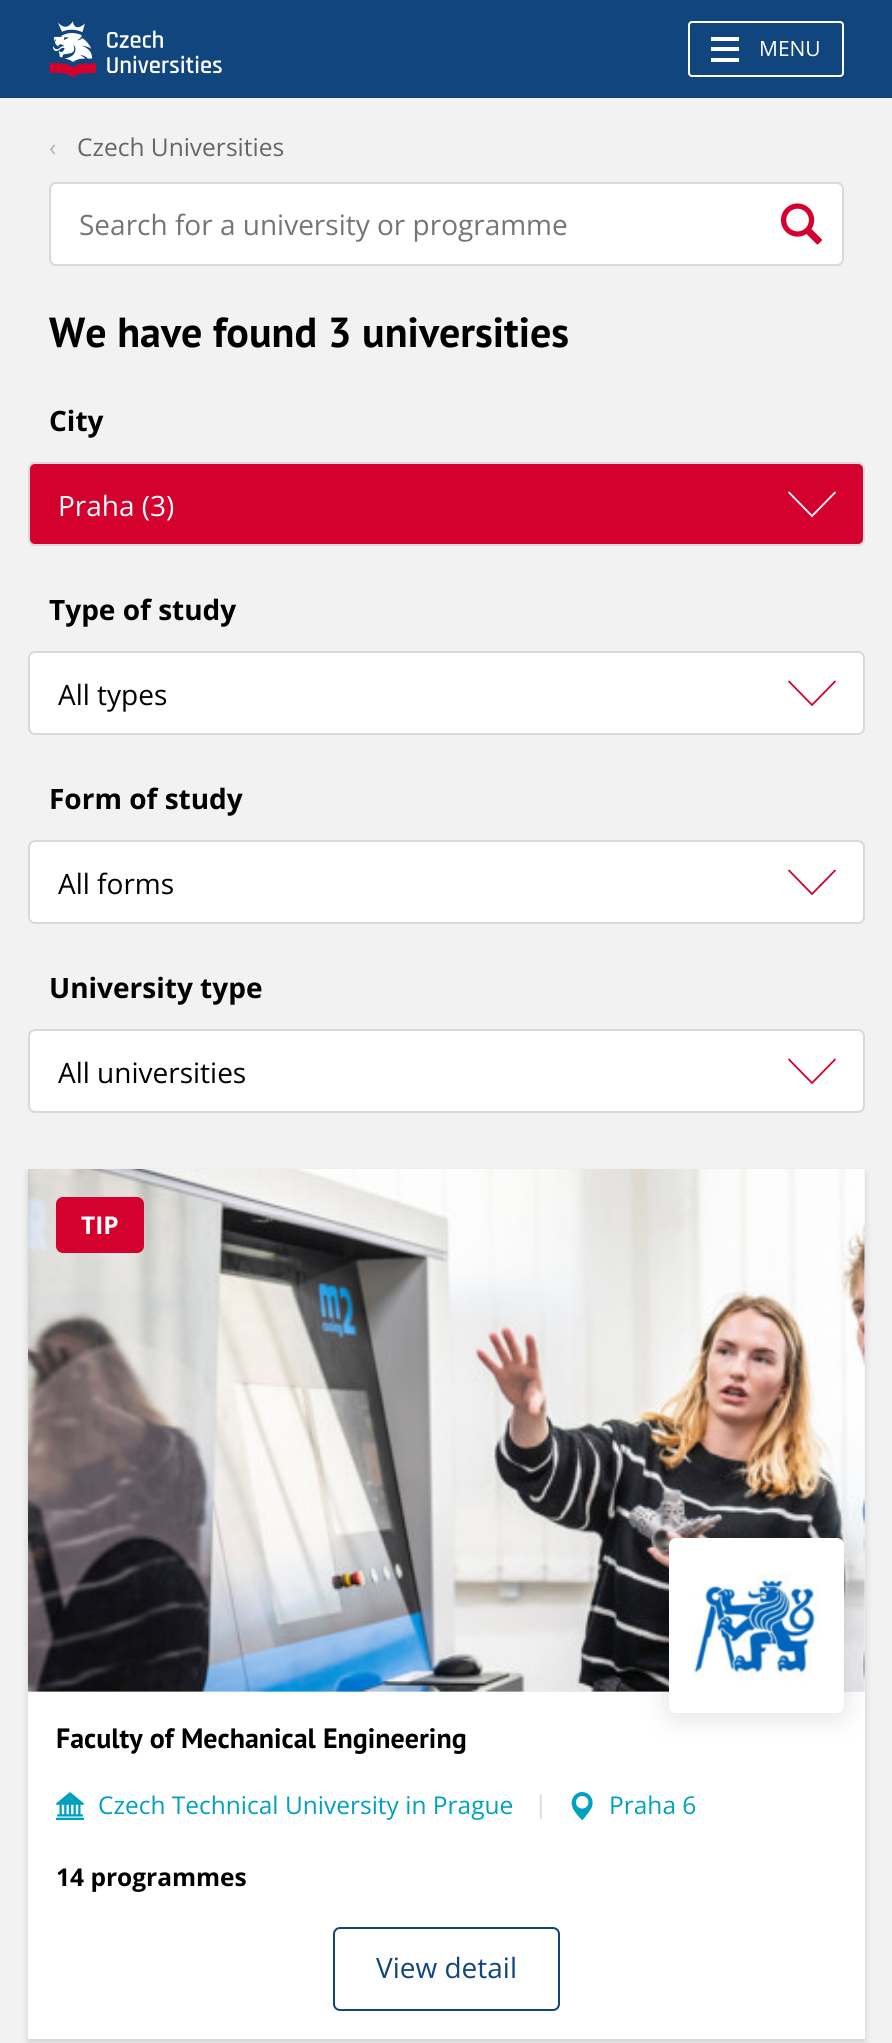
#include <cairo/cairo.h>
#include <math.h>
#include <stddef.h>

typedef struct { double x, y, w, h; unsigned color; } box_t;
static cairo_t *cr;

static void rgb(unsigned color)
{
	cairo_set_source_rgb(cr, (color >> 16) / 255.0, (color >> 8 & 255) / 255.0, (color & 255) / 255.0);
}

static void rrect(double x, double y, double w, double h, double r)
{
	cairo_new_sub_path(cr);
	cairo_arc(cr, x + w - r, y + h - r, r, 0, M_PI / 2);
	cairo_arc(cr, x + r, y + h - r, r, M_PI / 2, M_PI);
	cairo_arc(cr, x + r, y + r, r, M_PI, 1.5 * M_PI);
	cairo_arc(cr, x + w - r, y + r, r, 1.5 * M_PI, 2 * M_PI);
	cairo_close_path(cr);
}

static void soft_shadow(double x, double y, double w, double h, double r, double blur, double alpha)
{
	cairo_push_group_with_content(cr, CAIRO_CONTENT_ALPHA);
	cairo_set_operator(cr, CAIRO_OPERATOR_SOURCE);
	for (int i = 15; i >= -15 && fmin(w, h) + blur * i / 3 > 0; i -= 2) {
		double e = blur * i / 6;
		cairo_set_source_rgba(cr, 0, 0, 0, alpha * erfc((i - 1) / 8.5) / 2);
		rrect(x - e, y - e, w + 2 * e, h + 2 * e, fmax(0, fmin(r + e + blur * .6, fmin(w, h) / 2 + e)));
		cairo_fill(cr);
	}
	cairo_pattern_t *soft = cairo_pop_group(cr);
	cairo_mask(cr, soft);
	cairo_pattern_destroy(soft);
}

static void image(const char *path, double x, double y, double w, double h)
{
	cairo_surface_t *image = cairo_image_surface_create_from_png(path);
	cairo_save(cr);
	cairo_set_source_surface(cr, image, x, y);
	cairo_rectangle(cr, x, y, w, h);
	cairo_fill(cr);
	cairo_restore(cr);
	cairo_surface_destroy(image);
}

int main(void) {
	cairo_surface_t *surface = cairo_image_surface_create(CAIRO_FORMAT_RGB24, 892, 2043);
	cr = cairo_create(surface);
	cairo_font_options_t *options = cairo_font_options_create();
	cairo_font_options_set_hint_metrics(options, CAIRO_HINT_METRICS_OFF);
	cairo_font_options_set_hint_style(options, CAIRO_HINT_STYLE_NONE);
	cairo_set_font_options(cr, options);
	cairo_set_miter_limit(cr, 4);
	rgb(0xf2f2f2);
	cairo_paint(cr);
	rgb(0x11457e);
	cairo_rectangle(cr, 0, 0, 892, 98);
	cairo_fill(cr);
	image("img/1.png", 49, 21, 173, 56);
	rrect(689, 22, 154, 54, 3);
	rgb(0xffffff);
	cairo_stroke(cr);
	{
		static const box_t items[] = {
			{711, 47, 28, 4, 0xffffff},
			{711, 37, 28, 4, 0xffffff},
			{711, 58, 28, 4, 0xffffff},
		};
		for (size_t i = 0; i < sizeof items / sizeof *items; i++) {
			rgb(items[i].color);
			cairo_rectangle(cr, items[i].x, items[i].y, items[i].w, items[i].h);
			cairo_fill(cr);
		}
	}
	rrect(50, 183, 793, 82, 6);
	cairo_fill_preserve(cr);
	rgb(0xd9d9d9);
	cairo_stroke(cr);
	image("img/2.png", 780, 203, 42, 42);
	rgb(0xd4012e);
	rrect(29, 463, 835, 82, 6);
	cairo_fill_preserve(cr);
	rgb(0xd9d9d9);
	cairo_stroke(cr);
	cairo_new_path(cr);
	cairo_move_to(cr, 788.5, 492);
	cairo_line_to(cr, 812, 516);
	cairo_line_to(cr, 835.5, 492);
	rgb(0xffffff);
	cairo_set_line_width(cr, 1.8);
	cairo_stroke(cr);
	rrect(29, 652, 835, 82, 6);
	cairo_fill_preserve(cr);
	rgb(0xd9d9d9);
	cairo_set_line_width(cr, 2);
	cairo_stroke(cr);
	cairo_new_path(cr);
	cairo_move_to(cr, 788.5, 681);
	cairo_line_to(cr, 812, 705);
	cairo_line_to(cr, 835.5, 681);
	rgb(0xd4012e);
	cairo_set_line_width(cr, 1.8);
	cairo_stroke(cr);
	rgb(0xffffff);
	rrect(29, 841, 835, 82, 6);
	cairo_fill_preserve(cr);
	rgb(0xd9d9d9);
	cairo_set_line_width(cr, 2);
	cairo_stroke(cr);
	cairo_new_path(cr);
	cairo_move_to(cr, 788.5, 870);
	cairo_line_to(cr, 812, 894);
	cairo_line_to(cr, 835.5, 870);
	rgb(0xd4012e);
	cairo_set_line_width(cr, 1.8);
	cairo_stroke(cr);
	rgb(0xffffff);
	rrect(29, 1030, 835, 82, 6);
	cairo_fill_preserve(cr);
	rgb(0xd9d9d9);
	cairo_set_line_width(cr, 2);
	cairo_stroke(cr);
	cairo_new_path(cr);
	cairo_move_to(cr, 788.5, 1059);
	cairo_line_to(cr, 812, 1083);
	cairo_line_to(cr, 835.5, 1059);
	rgb(0xd4012e);
	cairo_set_line_width(cr, 1.8);
	cairo_stroke(cr);
	rgb(0x000000);
	soft_shadow(28, 1173, 837, 869, 0, 3.5, 0.15);
	rgb(0xffffff);
	cairo_rectangle(cr, 28, 1692, 837, 347);
	cairo_fill(cr);
	rgb(0xf2f2f2);
	cairo_rectangle(cr, 28, 1169, 837, 523);
	cairo_fill(cr);
	image("img/3.png", 28, 1169, 837, 523);
	rgb(0xd4012e);
	rrect(56, 1197, 88, 56, 7);
	cairo_fill(cr);
	rgb(0x000000);
	soft_shadow(669, 1542, 175, 175, 7, 15.5, 0.12);
	rgb(0xffffff);
	rrect(669, 1538, 175, 175, 7);
	cairo_fill(cr);
	image("img/4.png", 693, 1573, 129, 108);
	image("img/5.png", 56, 1792, 28, 28);
	image("img/6.png", 571, 1792, 22, 29);
	rrect(334, 1928, 225, 82, 6);
	rgb(0x11457e);
	cairo_set_line_width(cr, 2);
	cairo_stroke(cr);
	cairo_select_font_face(cr, "Open Sans", CAIRO_FONT_SLANT_NORMAL, CAIRO_FONT_WEIGHT_NORMAL);
	cairo_set_font_size(cr, 21);
	rgb(0xffffff);
	cairo_move_to(cr, 759, 56);
	cairo_show_text(cr, "MENU");
	cairo_set_font_size(cr, 24.5);
	rgb(0xb3b3b3);
	cairo_move_to(cr, 49, 156);
	cairo_show_text(cr, "‹");
	rgb(0x666666);
	cairo_move_to(cr, 77, 156);
	cairo_show_text(cr, "Czech Universities");
	cairo_set_font_size(cr, 28);
	rgb(0x757575);
	cairo_move_to(cr, 79, 235);
	cairo_show_text(cr, "Search for a university or programme");
	cairo_select_font_face(cr, "PT Sans", CAIRO_FONT_SLANT_NORMAL, CAIRO_FONT_WEIGHT_BOLD);
	cairo_set_font_size(cr, 42);
	rgb(0x000000);
	cairo_move_to(cr, 49, 347);
	cairo_show_text(cr, "We have found 3 universities");
	cairo_select_font_face(cr, "Open Sans", CAIRO_FONT_SLANT_NORMAL, CAIRO_FONT_WEIGHT_BOLD);
	cairo_set_font_size(cr, 28);
	cairo_move_to(cr, 49, 431);
	cairo_show_text(cr, "City");
	cairo_select_font_face(cr, "Open Sans", CAIRO_FONT_SLANT_NORMAL, CAIRO_FONT_WEIGHT_NORMAL);
	rgb(0xffffff);
	cairo_move_to(cr, 58, 516);
	cairo_show_text(cr, "Praha (3)");
	cairo_select_font_face(cr, "Open Sans", CAIRO_FONT_SLANT_NORMAL, CAIRO_FONT_WEIGHT_BOLD);
	rgb(0x000000);
	cairo_move_to(cr, 49, 620);
	cairo_show_text(cr, "Type of study");
	cairo_select_font_face(cr, "Open Sans", CAIRO_FONT_SLANT_NORMAL, CAIRO_FONT_WEIGHT_NORMAL);
	cairo_move_to(cr, 58, 705);
	cairo_show_text(cr, "All types");
	cairo_select_font_face(cr, "Open Sans", CAIRO_FONT_SLANT_NORMAL, CAIRO_FONT_WEIGHT_BOLD);
	cairo_move_to(cr, 49, 809);
	cairo_show_text(cr, "Form of study");
	cairo_select_font_face(cr, "Open Sans", CAIRO_FONT_SLANT_NORMAL, CAIRO_FONT_WEIGHT_NORMAL);
	cairo_move_to(cr, 58, 894);
	cairo_show_text(cr, "All forms");
	cairo_select_font_face(cr, "Open Sans", CAIRO_FONT_SLANT_NORMAL, CAIRO_FONT_WEIGHT_BOLD);
	cairo_move_to(cr, 49, 998);
	cairo_show_text(cr, "University type");
	cairo_select_font_face(cr, "Open Sans", CAIRO_FONT_SLANT_NORMAL, CAIRO_FONT_WEIGHT_NORMAL);
	cairo_move_to(cr, 58, 1083);
	cairo_show_text(cr, "All universities");
	cairo_select_font_face(cr, "Open Sans", CAIRO_FONT_SLANT_NORMAL, CAIRO_FONT_WEIGHT_BOLD);
	cairo_set_font_size(cr, 24.5);
	rgb(0xffffff);
	cairo_move_to(cr, 81, 1234);
	cairo_show_text(cr, "TIP");
	cairo_select_font_face(cr, "PT Sans", CAIRO_FONT_SLANT_NORMAL, CAIRO_FONT_WEIGHT_BOLD);
	cairo_set_font_size(cr, 28);
	rgb(0x000000);
	cairo_move_to(cr, 56, 1748);
	cairo_show_text(cr, "Faculty of Mechanical Engineering");
	cairo_select_font_face(cr, "Open Sans", CAIRO_FONT_SLANT_NORMAL, CAIRO_FONT_WEIGHT_NORMAL);
	cairo_set_font_size(cr, 24.5);
	rgb(0x00a0c0);
	cairo_move_to(cr, 98, 1814);
	cairo_show_text(cr, "Czech Technical University in Prague");
	rgb(0xd9d9d9);
	cairo_move_to(cr, 534, 1813);
	cairo_show_text(cr, "|");
	rgb(0x00a0c0);
	cairo_move_to(cr, 609, 1814);
	cairo_show_text(cr, "Praha 6");
	cairo_select_font_face(cr, "Open Sans", CAIRO_FONT_SLANT_NORMAL, CAIRO_FONT_WEIGHT_BOLD);
	rgb(0x000000);
	cairo_move_to(cr, 56, 1886);
	cairo_show_text(cr, "14 programmes");
	cairo_select_font_face(cr, "Open Sans", CAIRO_FONT_SLANT_NORMAL, CAIRO_FONT_WEIGHT_NORMAL);
	cairo_set_font_size(cr, 28);
	rgb(0x11457e);
	cairo_move_to(cr, 376, 1978);
	cairo_show_text(cr, "View detail");
	cairo_surface_write_to_png(surface, "page.png");
	cairo_font_options_destroy(options);
	cairo_destroy(cr);
	cairo_surface_destroy(surface);
	return 0;
}
